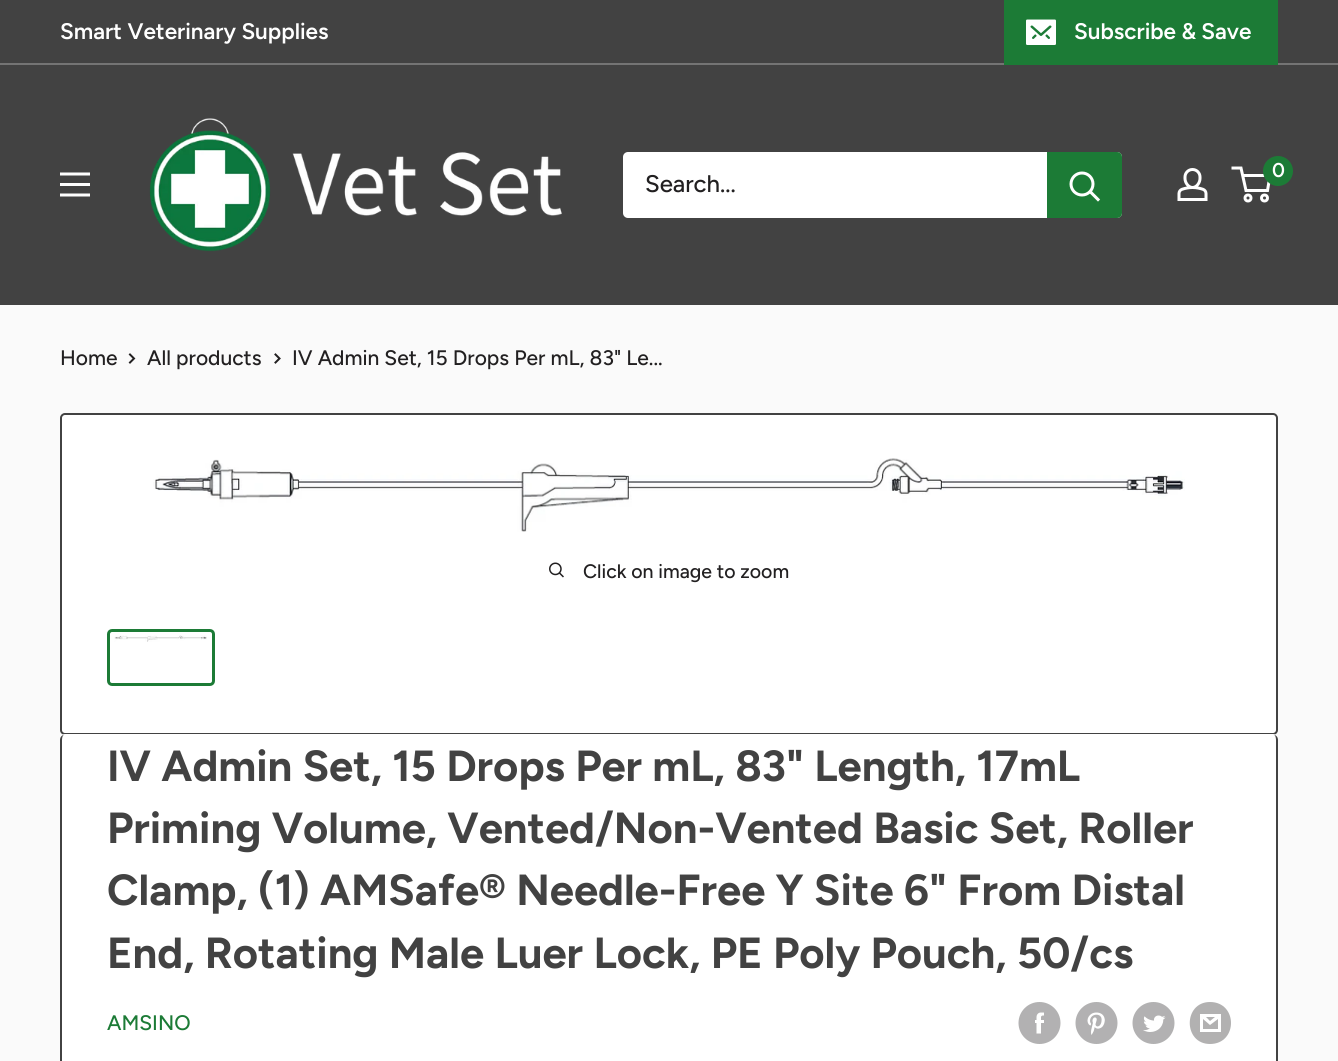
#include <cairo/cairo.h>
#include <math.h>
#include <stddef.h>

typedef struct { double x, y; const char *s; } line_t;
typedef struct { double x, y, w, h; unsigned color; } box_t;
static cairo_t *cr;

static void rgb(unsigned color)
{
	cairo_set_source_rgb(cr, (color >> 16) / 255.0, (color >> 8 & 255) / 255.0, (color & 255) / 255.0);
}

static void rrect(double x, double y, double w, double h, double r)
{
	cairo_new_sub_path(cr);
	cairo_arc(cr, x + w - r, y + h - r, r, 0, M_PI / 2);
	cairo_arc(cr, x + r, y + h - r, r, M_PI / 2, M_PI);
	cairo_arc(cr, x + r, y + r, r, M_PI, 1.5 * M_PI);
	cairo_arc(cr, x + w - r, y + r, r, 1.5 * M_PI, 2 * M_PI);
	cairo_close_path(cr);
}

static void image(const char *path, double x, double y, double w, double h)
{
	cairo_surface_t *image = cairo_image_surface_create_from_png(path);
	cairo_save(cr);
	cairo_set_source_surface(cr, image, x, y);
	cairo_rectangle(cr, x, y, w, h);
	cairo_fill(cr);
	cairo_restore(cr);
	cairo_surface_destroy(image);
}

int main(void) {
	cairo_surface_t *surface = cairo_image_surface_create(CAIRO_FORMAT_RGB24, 1338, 1061);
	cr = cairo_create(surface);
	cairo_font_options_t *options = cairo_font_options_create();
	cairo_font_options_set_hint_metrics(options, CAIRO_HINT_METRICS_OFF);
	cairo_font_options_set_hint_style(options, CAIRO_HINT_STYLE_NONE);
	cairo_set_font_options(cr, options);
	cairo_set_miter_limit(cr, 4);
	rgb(0xfafafa);
	cairo_paint(cr);
	{
		static const box_t items[] = {
			{0, 0, 1338, 63, 0x424242},
			{0, 63, 1338, 2, 0x747474},
			{1004, 0, 274, 65, 0x1c7b36},
		};
		for (size_t i = 0; i < sizeof items / sizeof *items; i++) {
			rgb(items[i].color);
			cairo_rectangle(cr, items[i].x, items[i].y, items[i].w, items[i].h);
			cairo_fill(cr);
		}
	}
	image("img/1.png", 1026, 19, 30, 26);
	rgb(0x424242);
	cairo_rectangle(cr, 0, 65, 1338, 240);
	cairo_fill(cr);
	image("img/2.png", 149, 118, 413, 134);
	image("img/3.png", 1177, 168, 31, 33);
	cairo_arc(cr, 1248, 198, 3, 0, 2 * M_PI);
	rgb(0xffffff);
	cairo_set_line_width(cr, 3);
	cairo_stroke(cr);
	cairo_arc(cr, 1264.5, 198, 3, 0, 2 * M_PI);
	cairo_stroke(cr);
	cairo_new_path(cr);
	cairo_move_to(cr, 1242.5, 175.5);
	cairo_line_to(cr, 1270, 175.5);
	cairo_line_to(cr, 1267.5, 190.5);
	cairo_line_to(cr, 1246, 190.5);
	cairo_line_to(cr, 1241, 168);
	cairo_line_to(cr, 1231.5, 168);
	cairo_stroke(cr);
	rgb(0x1c7b36);
	cairo_arc(cr, 1278, 171, 15, 0, 2 * M_PI);
	cairo_fill(cr);
	image("img/4.png", 60, 172, 30, 25);
	rgb(0xffffff);
	rrect(623, 152, 499, 66, 5);
	cairo_fill(cr);
	rgb(0x1c7b36);
	cairo_new_path(cr);
	cairo_move_to(cr, 1047, 152);
	cairo_line_to(cr, 1117, 152);
	cairo_curve_to(cr, 1120, 152, 1122, 154, 1122, 157);
	cairo_line_to(cr, 1122, 213);
	cairo_curve_to(cr, 1122, 216, 1120, 218, 1117, 218);
	cairo_line_to(cr, 1047, 218);
	cairo_close_path(cr);
	cairo_fill(cr);
	cairo_new_path(cr);
	cairo_move_to(cr, 1098, 199.5);
	cairo_line_to(cr, 1090.5, 192);
	rgb(0xffffff);
	cairo_set_line_cap(cr, CAIRO_LINE_CAP_SQUARE);
	cairo_stroke(cr);
	cairo_arc(cr, 1082, 184, 11, 0, 2 * M_PI);
	cairo_set_line_cap(cr, CAIRO_LINE_CAP_BUTT);
	cairo_stroke(cr);
	cairo_new_path(cr);
	cairo_move_to(cr, 130, 354.5);
	cairo_line_to(cr, 134, 358.5);
	cairo_line_to(cr, 130, 362.5);
	rgb(0x222021);
	cairo_set_line_width(cr, 2);
	cairo_set_line_cap(cr, CAIRO_LINE_CAP_SQUARE);
	cairo_stroke(cr);
	cairo_new_path(cr);
	cairo_move_to(cr, 275.5, 354.5);
	cairo_line_to(cr, 279.5, 358.5);
	cairo_line_to(cr, 275.5, 362.5);
	cairo_stroke(cr);
	rgb(0xffffff);
	rrect(61, 414, 1216, 320, 4);
	cairo_fill_preserve(cr);
	rgb(0x424242);
	cairo_set_line_cap(cr, CAIRO_LINE_CAP_BUTT);
	cairo_stroke(cr);
	image("img/5.png", 153, 458, 1032, 74);
	image("img/6.png", 549, 562, 15, 16);
	rrect(108.5, 630.5, 105, 54, 3.5);
	rgb(0x1c7b36);
	cairo_set_line_width(cr, 3);
	cairo_stroke(cr);
	image("img/7.png", 114, 635, 93, 7);
	rgb(0xffffff);
	cairo_new_path(cr);
	cairo_move_to(cr, 65, 734);
	cairo_curve_to(cr, 62, 734, 60, 737, 60, 740);
	cairo_curve_to(cr, 60, 737, 62, 735, 64, 735);
	cairo_line_to(cr, 1274, 735);
	cairo_curve_to(cr, 1276, 735, 1278, 737, 1278, 740);
	cairo_curve_to(cr, 1278, 737, 1276, 734, 1273, 734);
	cairo_close_path(cr);
	cairo_fill(cr);
	rrect(60, 735, 1218, 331, 5);
	cairo_fill(cr);
	rgb(0x424242);
	cairo_set_fill_rule(cr, CAIRO_FILL_RULE_EVEN_ODD);
	cairo_new_path(cr);
	cairo_move_to(cr, 64, 735);
	cairo_line_to(cr, 1274, 735);
	cairo_curve_to(cr, 1276, 735, 1278, 737, 1278, 740);
	cairo_line_to(cr, 1278, 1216);
	cairo_curve_to(cr, 1278, 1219, 1276, 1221, 1274, 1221);
	cairo_line_to(cr, 64, 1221);
	cairo_curve_to(cr, 62, 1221, 60, 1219, 60, 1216);
	cairo_line_to(cr, 60, 740);
	cairo_curve_to(cr, 60, 737, 62, 735, 64, 735);
	cairo_close_path(cr);
	cairo_move_to(cr, 64, 735);
	cairo_line_to(cr, 1274, 735);
	cairo_curve_to(cr, 1275, 735, 1276, 737, 1276, 740);
	cairo_line_to(cr, 1276, 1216);
	cairo_curve_to(cr, 1276, 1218, 1275, 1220, 1274, 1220);
	cairo_line_to(cr, 64, 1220);
	cairo_curve_to(cr, 63, 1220, 62, 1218, 62, 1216);
	cairo_line_to(cr, 62, 740);
	cairo_curve_to(cr, 62, 737, 63, 735, 64, 735);
	cairo_close_path(cr);
	cairo_fill(cr);
	image("img/8.png", 1018, 1002, 43, 42);
	image("img/9.png", 1075, 1002, 43, 42);
	image("img/10.png", 1132, 1002, 43, 42);
	rgb(0xb2b1b1);
	cairo_set_fill_rule(cr, CAIRO_FILL_RULE_WINDING);
	cairo_new_path(cr);
	cairo_move_to(cr, 1210, 1044);
	cairo_curve_to(cr, 1183, 1044, 1183, 1002, 1210, 1002);
	cairo_curve_to(cr, 1238, 1002, 1238, 1044, 1210, 1044);
	cairo_close_path(cr);
	cairo_move_to(cr, 1206, 1017);
	cairo_line_to(cr, 1215, 1017);
	cairo_line_to(cr, 1210, 1021);
	cairo_close_path(cr);
	cairo_move_to(cr, 1218, 1019);
	cairo_line_to(cr, 1218, 1029);
	cairo_line_to(cr, 1203, 1029);
	cairo_line_to(cr, 1203, 1019);
	cairo_line_to(cr, 1210, 1025);
	cairo_close_path(cr);
	cairo_move_to(cr, 1221, 1014);
	cairo_line_to(cr, 1200, 1014);
	cairo_line_to(cr, 1200, 1032);
	cairo_line_to(cr, 1221, 1032);
	cairo_close_path(cr);
	cairo_fill(cr);
	cairo_select_font_face(cr, "Figtree SemiBold", CAIRO_FONT_SLANT_NORMAL, CAIRO_FONT_WEIGHT_NORMAL);
	cairo_set_font_size(cr, 22.5);
	rgb(0xffffff);
	cairo_move_to(cr, 60, 39);
	cairo_show_text(cr, "Smart Veterinary Supplies");
	cairo_move_to(cr, 1074, 39);
	cairo_show_text(cr, "Subscribe & Save");
	cairo_set_font_size(cr, 20);
	cairo_move_to(cr, 1272, 177);
	cairo_show_text(cr, "0");
	cairo_select_font_face(cr, "Figtree Medium", CAIRO_FONT_SLANT_NORMAL, CAIRO_FONT_WEIGHT_NORMAL);
	cairo_set_font_size(cr, 24);
	rgb(0x222021);
	cairo_move_to(cr, 645, 192);
	cairo_show_text(cr, "Search...");
	cairo_set_font_size(cr, 21);
	{
		static const line_t items[] = {
			{60, 365, "Home"},
			{147, 365, "All products"},
			{292, 365, "IV Admin Set, 15 Drops Per mL, 83\" Le..."},
		};
		for (size_t i = 0; i < sizeof items / sizeof *items; i++) {
			cairo_move_to(cr, items[i].x, items[i].y);
			cairo_show_text(cr, items[i].s);
		}
	}
	cairo_set_font_size(cr, 19.5);
	cairo_move_to(cr, 583, 578);
	cairo_show_text(cr, "Click on image to zoom");
	cairo_select_font_face(cr, "Figtree", CAIRO_FONT_SLANT_NORMAL, CAIRO_FONT_WEIGHT_BOLD);
	cairo_set_font_size(cr, 43.5);
	rgb(0x424242);
	{
		static const line_t items[] = {
			{107, 781, "IV Admin Set, 15 Drops Per mL, 83\" Length, 17mL"},
			{107, 843, "Priming Volume, Vented/Non-Vented Basic Set, Roller"},
			{107, 905, "Clamp, (1) AMSafe® Needle-Free Y Site 6\" From Distal"},
			{107, 968, "End, Rotating Male Luer Lock, PE Poly Pouch, 50/cs"},
		};
		for (size_t i = 0; i < sizeof items / sizeof *items; i++) {
			cairo_move_to(cr, items[i].x, items[i].y);
			cairo_show_text(cr, items[i].s);
		}
	}
	cairo_select_font_face(cr, "Figtree Medium", CAIRO_FONT_SLANT_NORMAL, CAIRO_FONT_WEIGHT_NORMAL);
	cairo_set_font_size(cr, 21);
	rgb(0x1c7b36);
	cairo_move_to(cr, 107, 1030);
	cairo_show_text(cr, "AMSINO");
	cairo_surface_write_to_png(surface, "page.png");
	cairo_font_options_destroy(options);
	cairo_destroy(cr);
	cairo_surface_destroy(surface);
	return 0;
}
